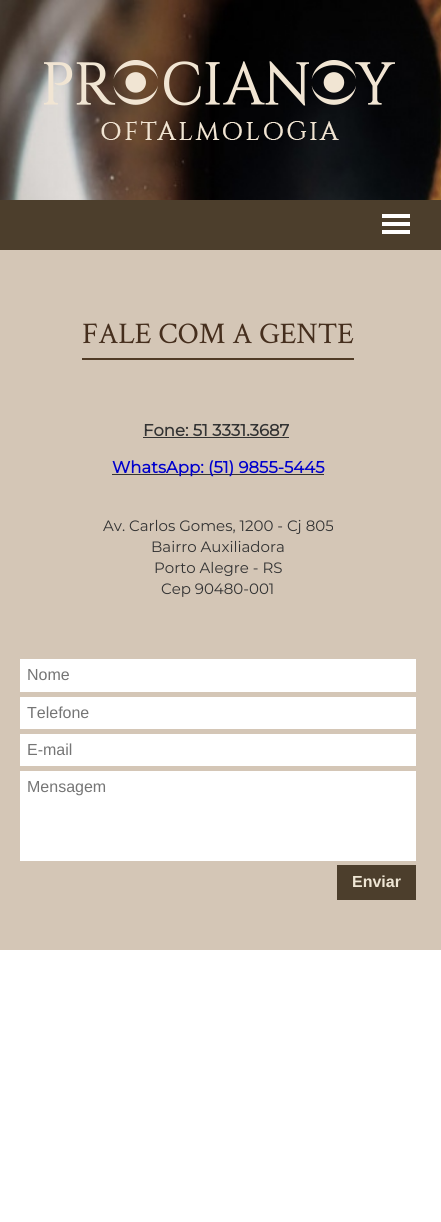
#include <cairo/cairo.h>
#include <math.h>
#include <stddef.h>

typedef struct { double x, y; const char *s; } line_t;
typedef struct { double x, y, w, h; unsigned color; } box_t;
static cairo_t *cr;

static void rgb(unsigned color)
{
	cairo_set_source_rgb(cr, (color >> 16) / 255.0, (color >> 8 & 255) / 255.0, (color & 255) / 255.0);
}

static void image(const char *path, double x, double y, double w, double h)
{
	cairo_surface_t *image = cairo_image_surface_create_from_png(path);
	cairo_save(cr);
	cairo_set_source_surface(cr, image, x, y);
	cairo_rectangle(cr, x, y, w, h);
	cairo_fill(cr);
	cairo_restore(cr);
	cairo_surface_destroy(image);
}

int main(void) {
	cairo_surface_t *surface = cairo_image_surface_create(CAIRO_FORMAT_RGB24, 441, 1222);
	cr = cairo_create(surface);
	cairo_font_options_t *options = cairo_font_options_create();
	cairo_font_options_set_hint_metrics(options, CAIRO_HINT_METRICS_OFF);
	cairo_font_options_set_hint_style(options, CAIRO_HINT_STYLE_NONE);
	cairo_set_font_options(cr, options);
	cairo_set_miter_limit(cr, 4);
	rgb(0xffffff);
	cairo_paint(cr);
	image("img/1.png", 0, 0, 441, 200);
	image("img/2.png", 44, 60, 351, 80);
	rgb(0x4c3e2c);
	cairo_rectangle(cr, 0, 200, 441, 50);
	cairo_fill(cr);
	image("img/3.png", 382, 214, 28, 20);
	{
		static const box_t items[] = {
			{0, 250, 441, 700, 0xd4c6b6},
			{82, 358, 272, 2, 0x503b26},
			{143, 437, 146, 1, 0x333333},
			{112, 474, 212, 1, 0x333333},
			{20, 659, 396, 33, 0xffffff},
			{20, 697, 396, 32, 0xffffff},
			{20, 734, 396, 32, 0xffffff},
			{20, 771, 396, 90, 0xffffff},
			{337, 865, 79, 35, 0x4c3e2c},
		};
		for (size_t i = 0; i < sizeof items / sizeof *items; i++) {
			rgb(items[i].color);
			cairo_rectangle(cr, items[i].x, items[i].y, items[i].w, items[i].h);
			cairo_fill(cr);
		}
	}
	cairo_select_font_face(cr, "Crimson Text", CAIRO_FONT_SLANT_NORMAL, CAIRO_FONT_WEIGHT_NORMAL);
	cairo_set_font_size(cr, 30);
	rgb(0x452e1d);
	cairo_move_to(cr, 82, 343);
	cairo_show_text(cr, "FALE COM A GENTE");
	cairo_select_font_face(cr, "Montserrat", CAIRO_FONT_SLANT_NORMAL, CAIRO_FONT_WEIGHT_BOLD);
	cairo_set_font_size(cr, 16.5);
	rgb(0x333333);
	cairo_move_to(cr, 143, 436);
	cairo_show_text(cr, "Fone: 51 3331.3687");
	rgb(0x0000cd);
	cairo_move_to(cr, 112, 473);
	cairo_show_text(cr, "WhatsApp: (51) 9855-5445");
	cairo_select_font_face(cr, "Montserrat Thin", CAIRO_FONT_SLANT_NORMAL, CAIRO_FONT_WEIGHT_NORMAL);
	cairo_set_font_size(cr, 15);
	rgb(0x333333);
	{
		static const line_t items[] = {
			{103, 531, "Av. Carlos Gomes, 1200 - Cj 805"},
			{151, 552, "Bairro Auxiliadora"},
			{154, 573, "Porto Alegre - RS"},
			{161, 594, "Cep 90480-001"},
		};
		for (size_t i = 0; i < sizeof items / sizeof *items; i++) {
			cairo_move_to(cr, items[i].x, items[i].y);
			cairo_show_text(cr, items[i].s);
		}
	}
	cairo_select_font_face(cr, "Liberation Sans", CAIRO_FONT_SLANT_NORMAL, CAIRO_FONT_WEIGHT_NORMAL);
	cairo_set_font_size(cr, 16);
	rgb(0x757575);
	{
		static const line_t items[] = {
			{27, 680, "Nome"},
			{27, 718, "Telefone"},
			{27, 755, "E-mail"},
			{27, 792, "Mensagem"},
		};
		for (size_t i = 0; i < sizeof items / sizeof *items; i++) {
			cairo_move_to(cr, items[i].x, items[i].y);
			cairo_show_text(cr, items[i].s);
		}
	}
	cairo_select_font_face(cr, "Liberation Sans", CAIRO_FONT_SLANT_NORMAL, CAIRO_FONT_WEIGHT_BOLD);
	rgb(0xefe6d5);
	cairo_move_to(cr, 352, 887);
	cairo_show_text(cr, "Enviar");
	cairo_surface_write_to_png(surface, "page.png");
	cairo_font_options_destroy(options);
	cairo_destroy(cr);
	cairo_surface_destroy(surface);
	return 0;
}
